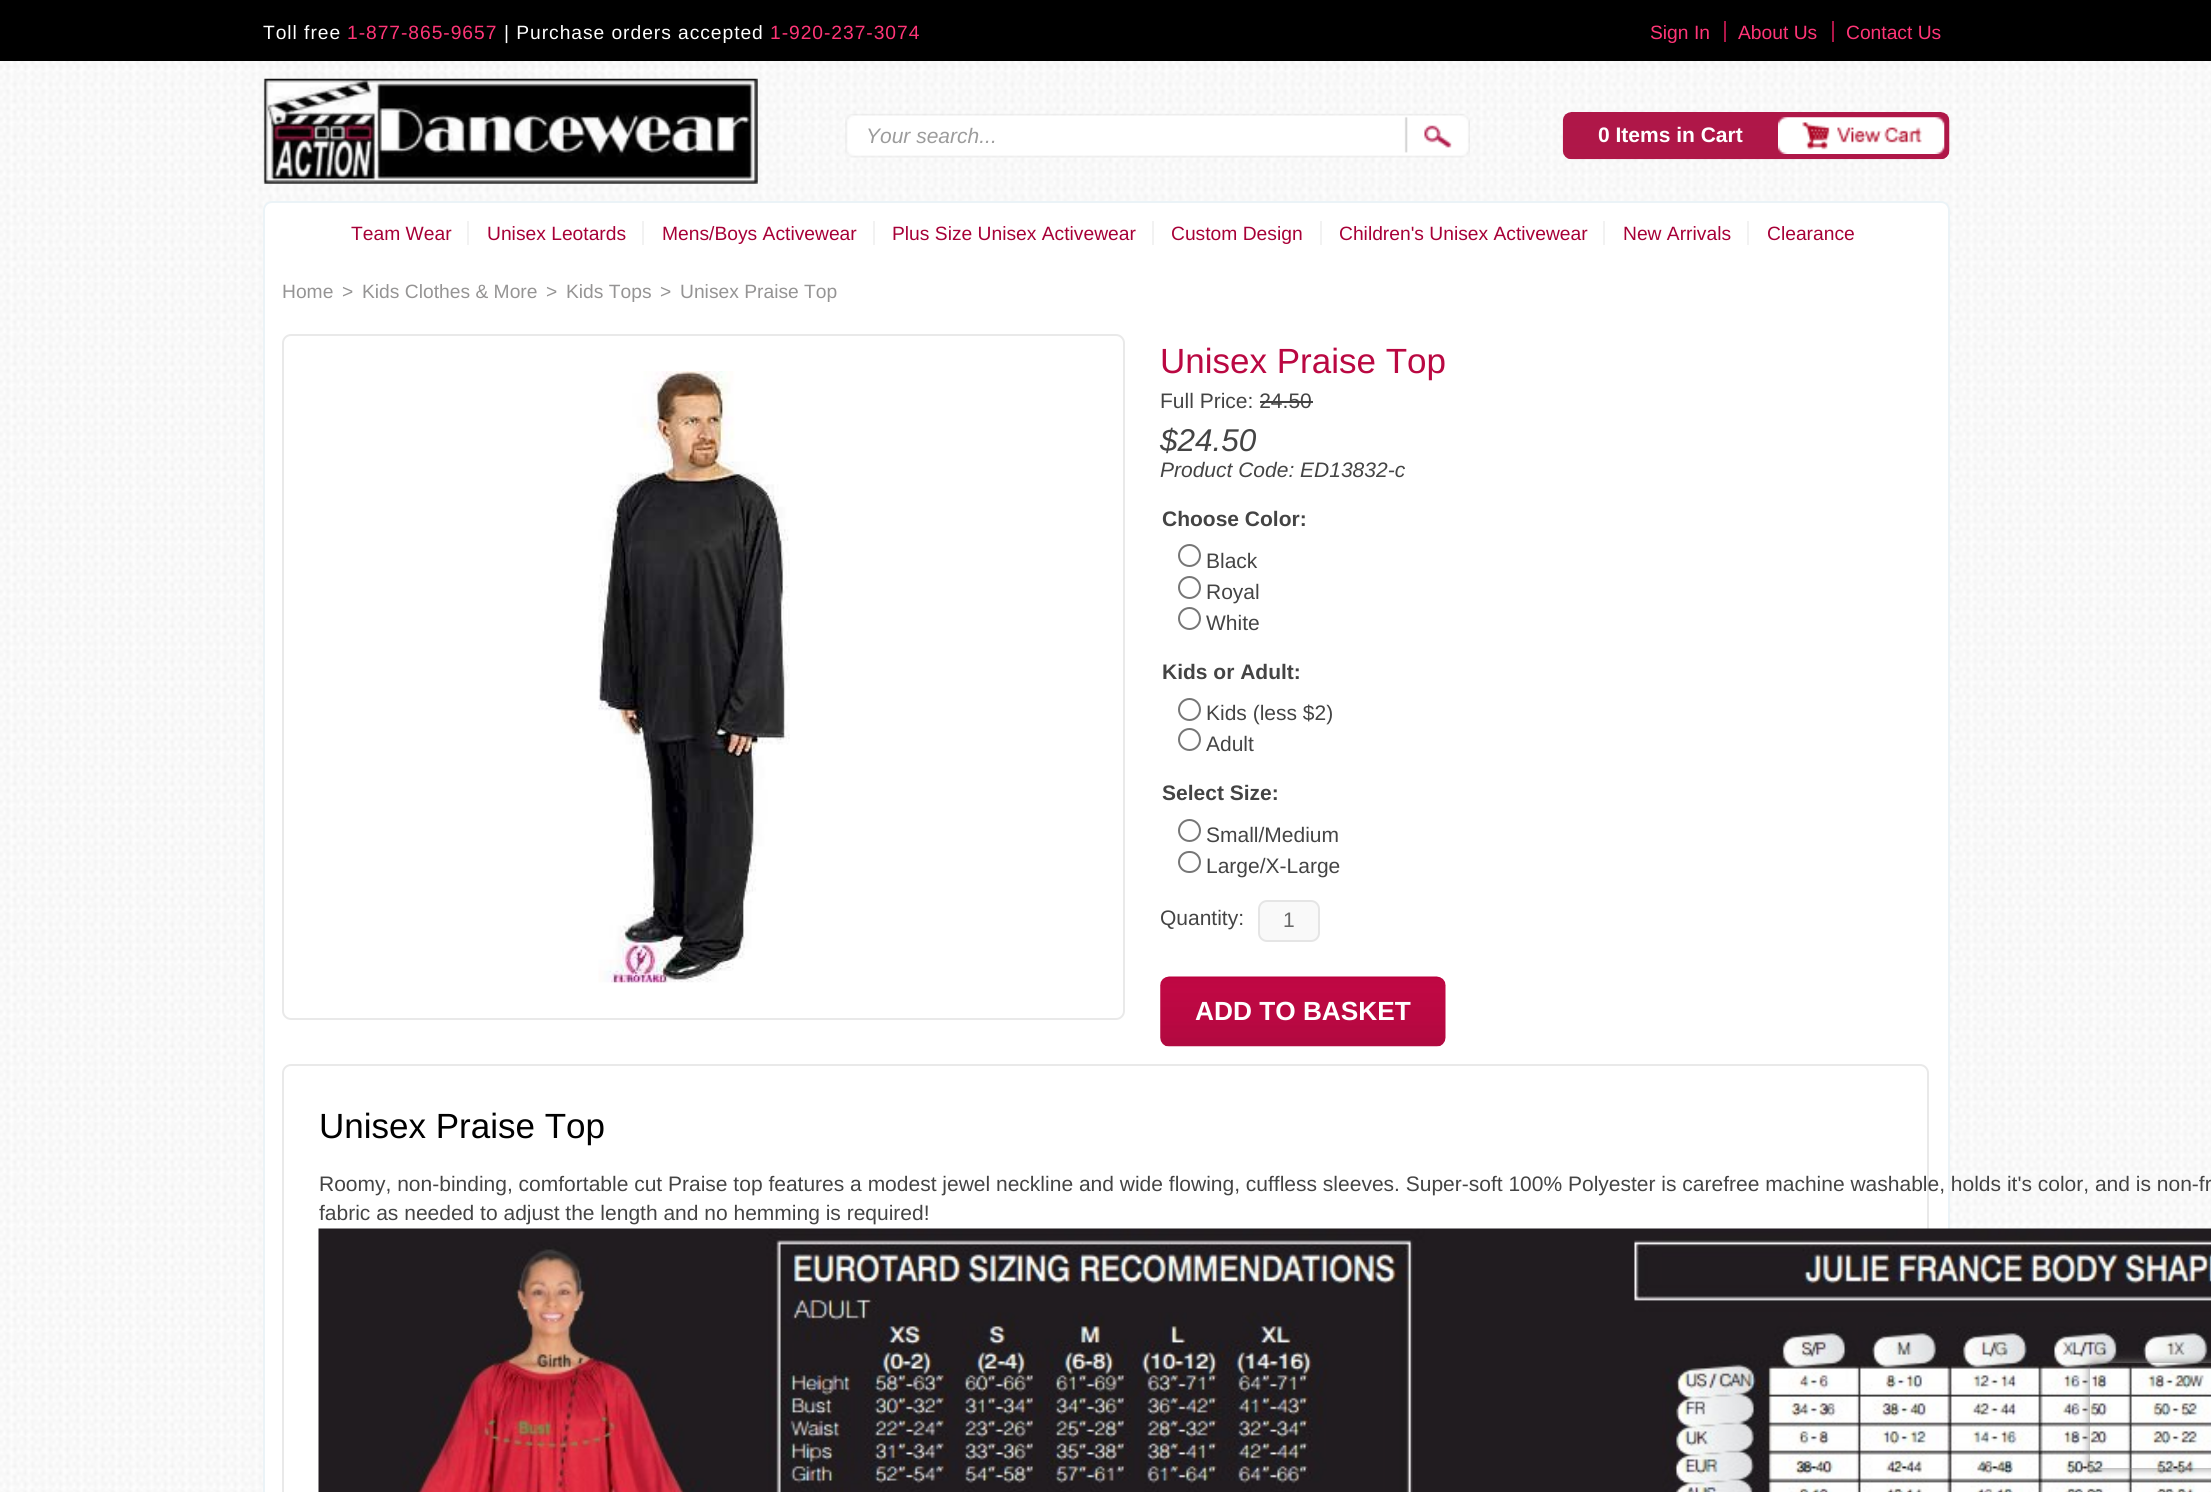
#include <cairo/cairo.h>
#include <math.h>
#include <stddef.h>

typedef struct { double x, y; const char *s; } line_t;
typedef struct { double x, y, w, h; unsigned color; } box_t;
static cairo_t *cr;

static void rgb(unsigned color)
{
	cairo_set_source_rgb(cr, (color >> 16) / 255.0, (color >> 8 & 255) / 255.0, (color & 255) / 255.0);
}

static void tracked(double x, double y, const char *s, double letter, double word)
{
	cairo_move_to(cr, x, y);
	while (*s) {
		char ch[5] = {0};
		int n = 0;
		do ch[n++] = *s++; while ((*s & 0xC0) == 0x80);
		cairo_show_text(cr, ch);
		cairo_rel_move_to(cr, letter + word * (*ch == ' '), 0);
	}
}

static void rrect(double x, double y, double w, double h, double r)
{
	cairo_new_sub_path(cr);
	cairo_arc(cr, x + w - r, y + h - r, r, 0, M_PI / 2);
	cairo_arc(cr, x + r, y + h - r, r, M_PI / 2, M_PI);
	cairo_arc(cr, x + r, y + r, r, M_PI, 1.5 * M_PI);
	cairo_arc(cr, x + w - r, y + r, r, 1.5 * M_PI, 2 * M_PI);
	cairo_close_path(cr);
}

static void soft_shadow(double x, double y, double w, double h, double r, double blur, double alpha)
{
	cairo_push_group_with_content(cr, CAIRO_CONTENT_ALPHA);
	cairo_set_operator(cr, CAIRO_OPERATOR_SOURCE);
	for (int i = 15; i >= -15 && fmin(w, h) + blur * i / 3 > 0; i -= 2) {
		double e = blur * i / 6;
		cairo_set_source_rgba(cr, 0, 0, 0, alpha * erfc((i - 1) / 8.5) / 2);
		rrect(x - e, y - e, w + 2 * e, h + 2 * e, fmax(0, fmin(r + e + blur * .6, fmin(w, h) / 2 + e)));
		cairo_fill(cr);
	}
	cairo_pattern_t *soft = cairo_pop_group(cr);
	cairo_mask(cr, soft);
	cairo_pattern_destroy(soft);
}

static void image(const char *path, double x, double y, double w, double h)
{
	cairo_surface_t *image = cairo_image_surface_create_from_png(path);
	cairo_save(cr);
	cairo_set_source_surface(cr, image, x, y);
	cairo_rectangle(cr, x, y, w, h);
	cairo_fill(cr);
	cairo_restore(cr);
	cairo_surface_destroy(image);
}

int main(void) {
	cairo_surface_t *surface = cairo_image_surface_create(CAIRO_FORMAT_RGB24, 2211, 1492);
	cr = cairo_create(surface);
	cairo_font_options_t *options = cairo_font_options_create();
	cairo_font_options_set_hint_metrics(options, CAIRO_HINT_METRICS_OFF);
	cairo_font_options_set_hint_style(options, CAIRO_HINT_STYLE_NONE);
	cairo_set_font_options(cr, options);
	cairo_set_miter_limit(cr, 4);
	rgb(0xffffff);
	cairo_paint(cr);
	image("img/1.png", 0, 61, 2211, 1431);
	{
		static const box_t items[] = {
			{0, 0, 2211, 61, 0x000000},
			{1724, 21, 2, 21, 0xaf1648},
			{1832, 21, 2, 21, 0xaf1648},
		};
		for (size_t i = 0; i < sizeof items / sizeof *items; i++) {
			rgb(items[i].color);
			cairo_rectangle(cr, items[i].x, items[i].y, items[i].w, items[i].h);
			cairo_fill(cr);
		}
	}
	image("img/2.png", 263, 78, 495, 106);
	image("img/3.png", 845, 113, 625, 45);
	image("img/4.png", 1562, 112, 388, 48);
	image("img/5.png", 1778, 117, 167, 37);
	rgb(0xffffff);
	rrect(264, 202, 1685, 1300, 8);
	cairo_fill_preserve(cr);
	rgb(0xebf3f7);
	cairo_stroke(cr);
	{
		static const box_t items[] = {
			{467, 221, 2, 24, 0xf2f2f2},
			{642, 221, 2, 24, 0xf2f2f2},
			{873, 221, 2, 24, 0xf2f2f2},
			{1152, 221, 2, 24, 0xf2f2f2},
			{1320, 221, 2, 24, 0xf2f2f2},
			{1603, 221, 2, 24, 0xf2f2f2},
			{1747, 221, 2, 24, 0xf2f2f2},
		};
		for (size_t i = 0; i < sizeof items / sizeof *items; i++) {
			rgb(items[i].color);
			cairo_rectangle(cr, items[i].x, items[i].y, items[i].w, items[i].h);
			cairo_fill(cr);
		}
	}
	rrect(283, 335, 841, 684, 8);
	rgb(0xe9e9e9);
	cairo_stroke(cr);
	image("img/6.png", 598, 371, 192, 613);
	rgb(0x444444);
	cairo_rectangle(cr, 1260, 401, 53, 2);
	cairo_fill(cr);
	cairo_arc(cr, 1189.5, 555.5, 10.5, 0, 2 * M_PI);
	rgb(0x767676);
	cairo_stroke(cr);
	cairo_arc(cr, 1189.5, 587.5, 10.5, 0, 2 * M_PI);
	cairo_stroke(cr);
	cairo_arc(cr, 1189.5, 618.5, 10.5, 0, 2 * M_PI);
	cairo_stroke(cr);
	cairo_arc(cr, 1189.5, 709.5, 10.5, 0, 2 * M_PI);
	cairo_stroke(cr);
	cairo_arc(cr, 1189.5, 739.5, 10.5, 0, 2 * M_PI);
	cairo_stroke(cr);
	cairo_arc(cr, 1189.5, 830.5, 10.5, 0, 2 * M_PI);
	cairo_stroke(cr);
	rrect(1179, 852, 21, 20, 10);
	cairo_stroke(cr);
	rgb(0xf9f9f9);
	rrect(1259, 901, 60, 40, 8);
	cairo_fill_preserve(cr);
	rgb(0xe5e5e5);
	cairo_stroke(cr);
	image("img/7.png", 1160, 976, 286, 71);
	rrect(283, 1065, 1645, 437, 8);
	rgb(0xe9e9e9);
	cairo_stroke(cr);
	image("img/8.png", 318, 1228, 1893, 264);
	cairo_save(cr);
	cairo_set_fill_rule(cr, CAIRO_FILL_RULE_EVEN_ODD);
	cairo_new_path(cr);
	cairo_move_to(cr, 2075, 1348);
	cairo_line_to(cr, 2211, 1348);
	cairo_line_to(cr, 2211, 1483);
	cairo_line_to(cr, 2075, 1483);
	cairo_close_path(cr);
	cairo_move_to(cr, 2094, 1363);
	cairo_line_to(cr, 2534, 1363);
	cairo_curve_to(cr, 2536, 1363, 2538, 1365, 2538, 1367);
	cairo_line_to(cr, 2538, 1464);
	cairo_curve_to(cr, 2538, 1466, 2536, 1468, 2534, 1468);
	cairo_line_to(cr, 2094, 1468);
	cairo_curve_to(cr, 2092, 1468, 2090, 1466, 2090, 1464);
	cairo_line_to(cr, 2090, 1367);
	cairo_curve_to(cr, 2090, 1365, 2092, 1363, 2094, 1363);
	cairo_close_path(cr);
	cairo_clip(cr);
	rgb(0x808080);
	soft_shadow(2090, 1363, 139, 105, 4, 4.5, 1);
	cairo_restore(cr);
	cairo_select_font_face(cr, "Liberation Sans", CAIRO_FONT_SLANT_NORMAL, CAIRO_FONT_WEIGHT_NORMAL);
	cairo_set_font_size(cr, 19.25);
	rgb(0xffffff);
	tracked(263, 39, "Toll free", 0.95, 0);
	rgb(0xff3577);
	tracked(347, 39, "1-877-865-9657", 0.95, 0);
	rgb(0xffffff);
	tracked(504, 39, "| Purchase orders accepted", 0.95, 0);
	rgb(0xff3577);
	tracked(770, 39, "1-920-237-3074", 0.95, 0);
	{
		static const line_t items[] = {
			{1650, 39, "Sign In"},
			{1738, 39, "About Us"},
			{1846, 39, "Contact Us"},
		};
		for (size_t i = 0; i < sizeof items / sizeof *items; i++) {
			cairo_move_to(cr, items[i].x, items[i].y);
			cairo_show_text(cr, items[i].s);
		}
	}
	cairo_select_font_face(cr, "Liberation Sans", CAIRO_FONT_SLANT_ITALIC, CAIRO_FONT_WEIGHT_NORMAL);
	cairo_set_font_size(cr, 21);
	rgb(0x9c9c9c);
	cairo_move_to(cr, 866, 143);
	cairo_show_text(cr, "Your search...");
	cairo_select_font_face(cr, "Liberation Sans", CAIRO_FONT_SLANT_NORMAL, CAIRO_FONT_WEIGHT_BOLD);
	rgb(0xffffff);
	cairo_move_to(cr, 1598, 142);
	cairo_show_text(cr, "0 Items in Cart");
	cairo_select_font_face(cr, "Liberation Sans", CAIRO_FONT_SLANT_NORMAL, CAIRO_FONT_WEIGHT_NORMAL);
	cairo_set_font_size(cr, 19.25);
	rgb(0xa70037);
	{
		static const line_t items[] = {
			{351, 240, "Team Wear"},
			{487, 240, "Unisex Leotards"},
			{662, 240, "Mens/Boys Activewear"},
			{892, 240, "Plus Size Unisex Activewear"},
			{1171, 240, "Custom Design"},
			{1339, 240, "Children's Unisex Activewear"},
			{1623, 240, "New Arrivals"},
			{1767, 240, "Clearance"},
		};
		for (size_t i = 0; i < sizeof items / sizeof *items; i++) {
			cairo_move_to(cr, items[i].x, items[i].y);
			cairo_show_text(cr, items[i].s);
		}
	}
	rgb(0x959494);
	{
		static const line_t items[] = {
			{282, 298, "Home"},
			{342, 298, ">"},
			{362, 298, "Kids Clothes & More"},
			{546, 298, ">"},
			{566, 298, "Kids Tops"},
			{660, 298, ">"},
			{680, 298, "Unisex Praise Top"},
		};
		for (size_t i = 0; i < sizeof items / sizeof *items; i++) {
			cairo_move_to(cr, items[i].x, items[i].y);
			cairo_show_text(cr, items[i].s);
		}
	}
	cairo_set_font_size(cr, 35);
	rgb(0xba0842);
	cairo_move_to(cr, 1160, 373);
	cairo_show_text(cr, "Unisex Praise Top");
	cairo_set_font_size(cr, 21);
	rgb(0x444444);
	cairo_move_to(cr, 1160, 408);
	cairo_show_text(cr, "Full Price: 24.50");
	cairo_select_font_face(cr, "Liberation Sans", CAIRO_FONT_SLANT_ITALIC, CAIRO_FONT_WEIGHT_NORMAL);
	cairo_set_font_size(cr, 31.5);
	cairo_move_to(cr, 1160, 451);
	cairo_show_text(cr, "$24.50");
	cairo_set_font_size(cr, 21);
	cairo_move_to(cr, 1160, 477);
	cairo_show_text(cr, "Product Code: ED13832-c");
	cairo_select_font_face(cr, "Liberation Sans", CAIRO_FONT_SLANT_NORMAL, CAIRO_FONT_WEIGHT_BOLD);
	cairo_move_to(cr, 1162, 526);
	cairo_show_text(cr, "Choose Color:");
	cairo_select_font_face(cr, "Liberation Sans", CAIRO_FONT_SLANT_NORMAL, CAIRO_FONT_WEIGHT_NORMAL);
	{
		static const line_t items[] = {
			{1206, 568, "Black"},
			{1206, 599, "Royal"},
			{1206, 630, "White"},
		};
		for (size_t i = 0; i < sizeof items / sizeof *items; i++) {
			cairo_move_to(cr, items[i].x, items[i].y);
			cairo_show_text(cr, items[i].s);
		}
	}
	cairo_select_font_face(cr, "Liberation Sans", CAIRO_FONT_SLANT_NORMAL, CAIRO_FONT_WEIGHT_BOLD);
	cairo_move_to(cr, 1162, 679);
	cairo_show_text(cr, "Kids or Adult:");
	cairo_select_font_face(cr, "Liberation Sans", CAIRO_FONT_SLANT_NORMAL, CAIRO_FONT_WEIGHT_NORMAL);
	cairo_move_to(cr, 1206, 720);
	cairo_show_text(cr, "Kids (less $2)");
	cairo_move_to(cr, 1206, 751);
	cairo_show_text(cr, "Adult");
	cairo_select_font_face(cr, "Liberation Sans", CAIRO_FONT_SLANT_NORMAL, CAIRO_FONT_WEIGHT_BOLD);
	cairo_move_to(cr, 1162, 800);
	cairo_show_text(cr, "Select Size:");
	cairo_select_font_face(cr, "Liberation Sans", CAIRO_FONT_SLANT_NORMAL, CAIRO_FONT_WEIGHT_NORMAL);
	{
		static const line_t items[] = {
			{1206, 842, "Small/Medium"},
			{1206, 873, "Large/X-Large"},
			{1160, 925, "Quantity:"},
		};
		for (size_t i = 0; i < sizeof items / sizeof *items; i++) {
			cairo_move_to(cr, items[i].x, items[i].y);
			cairo_show_text(cr, items[i].s);
		}
	}
	rgb(0x676767);
	cairo_move_to(cr, 1283, 927);
	cairo_show_text(cr, "1");
	cairo_select_font_face(cr, "Liberation Sans", CAIRO_FONT_SLANT_NORMAL, CAIRO_FONT_WEIGHT_BOLD);
	cairo_set_font_size(cr, 26.25);
	rgb(0xffffff);
	cairo_move_to(cr, 1195, 1020);
	cairo_show_text(cr, "ADD TO BASKET");
	cairo_select_font_face(cr, "Liberation Sans", CAIRO_FONT_SLANT_NORMAL, CAIRO_FONT_WEIGHT_NORMAL);
	cairo_set_font_size(cr, 35);
	rgb(0x000000);
	cairo_move_to(cr, 319, 1138);
	cairo_show_text(cr, "Unisex Praise Top");
	cairo_set_font_size(cr, 21);
	rgb(0x444444);
	cairo_move_to(cr, 319, 1191);
	cairo_show_text(cr, "Roomy, non-binding, comfortable cut Praise top features a modest jewel neckline and wide flowing, cuffless sleeves. Super-soft 100% Polyester is carefree machine washable, holds it's color, and is non-fr");
	cairo_move_to(cr, 319, 1220);
	cairo_show_text(cr, "fabric as needed to adjust the length and no hemming is required!");
	cairo_surface_write_to_png(surface, "page.png");
	cairo_font_options_destroy(options);
	cairo_destroy(cr);
	cairo_surface_destroy(surface);
	return 0;
}
